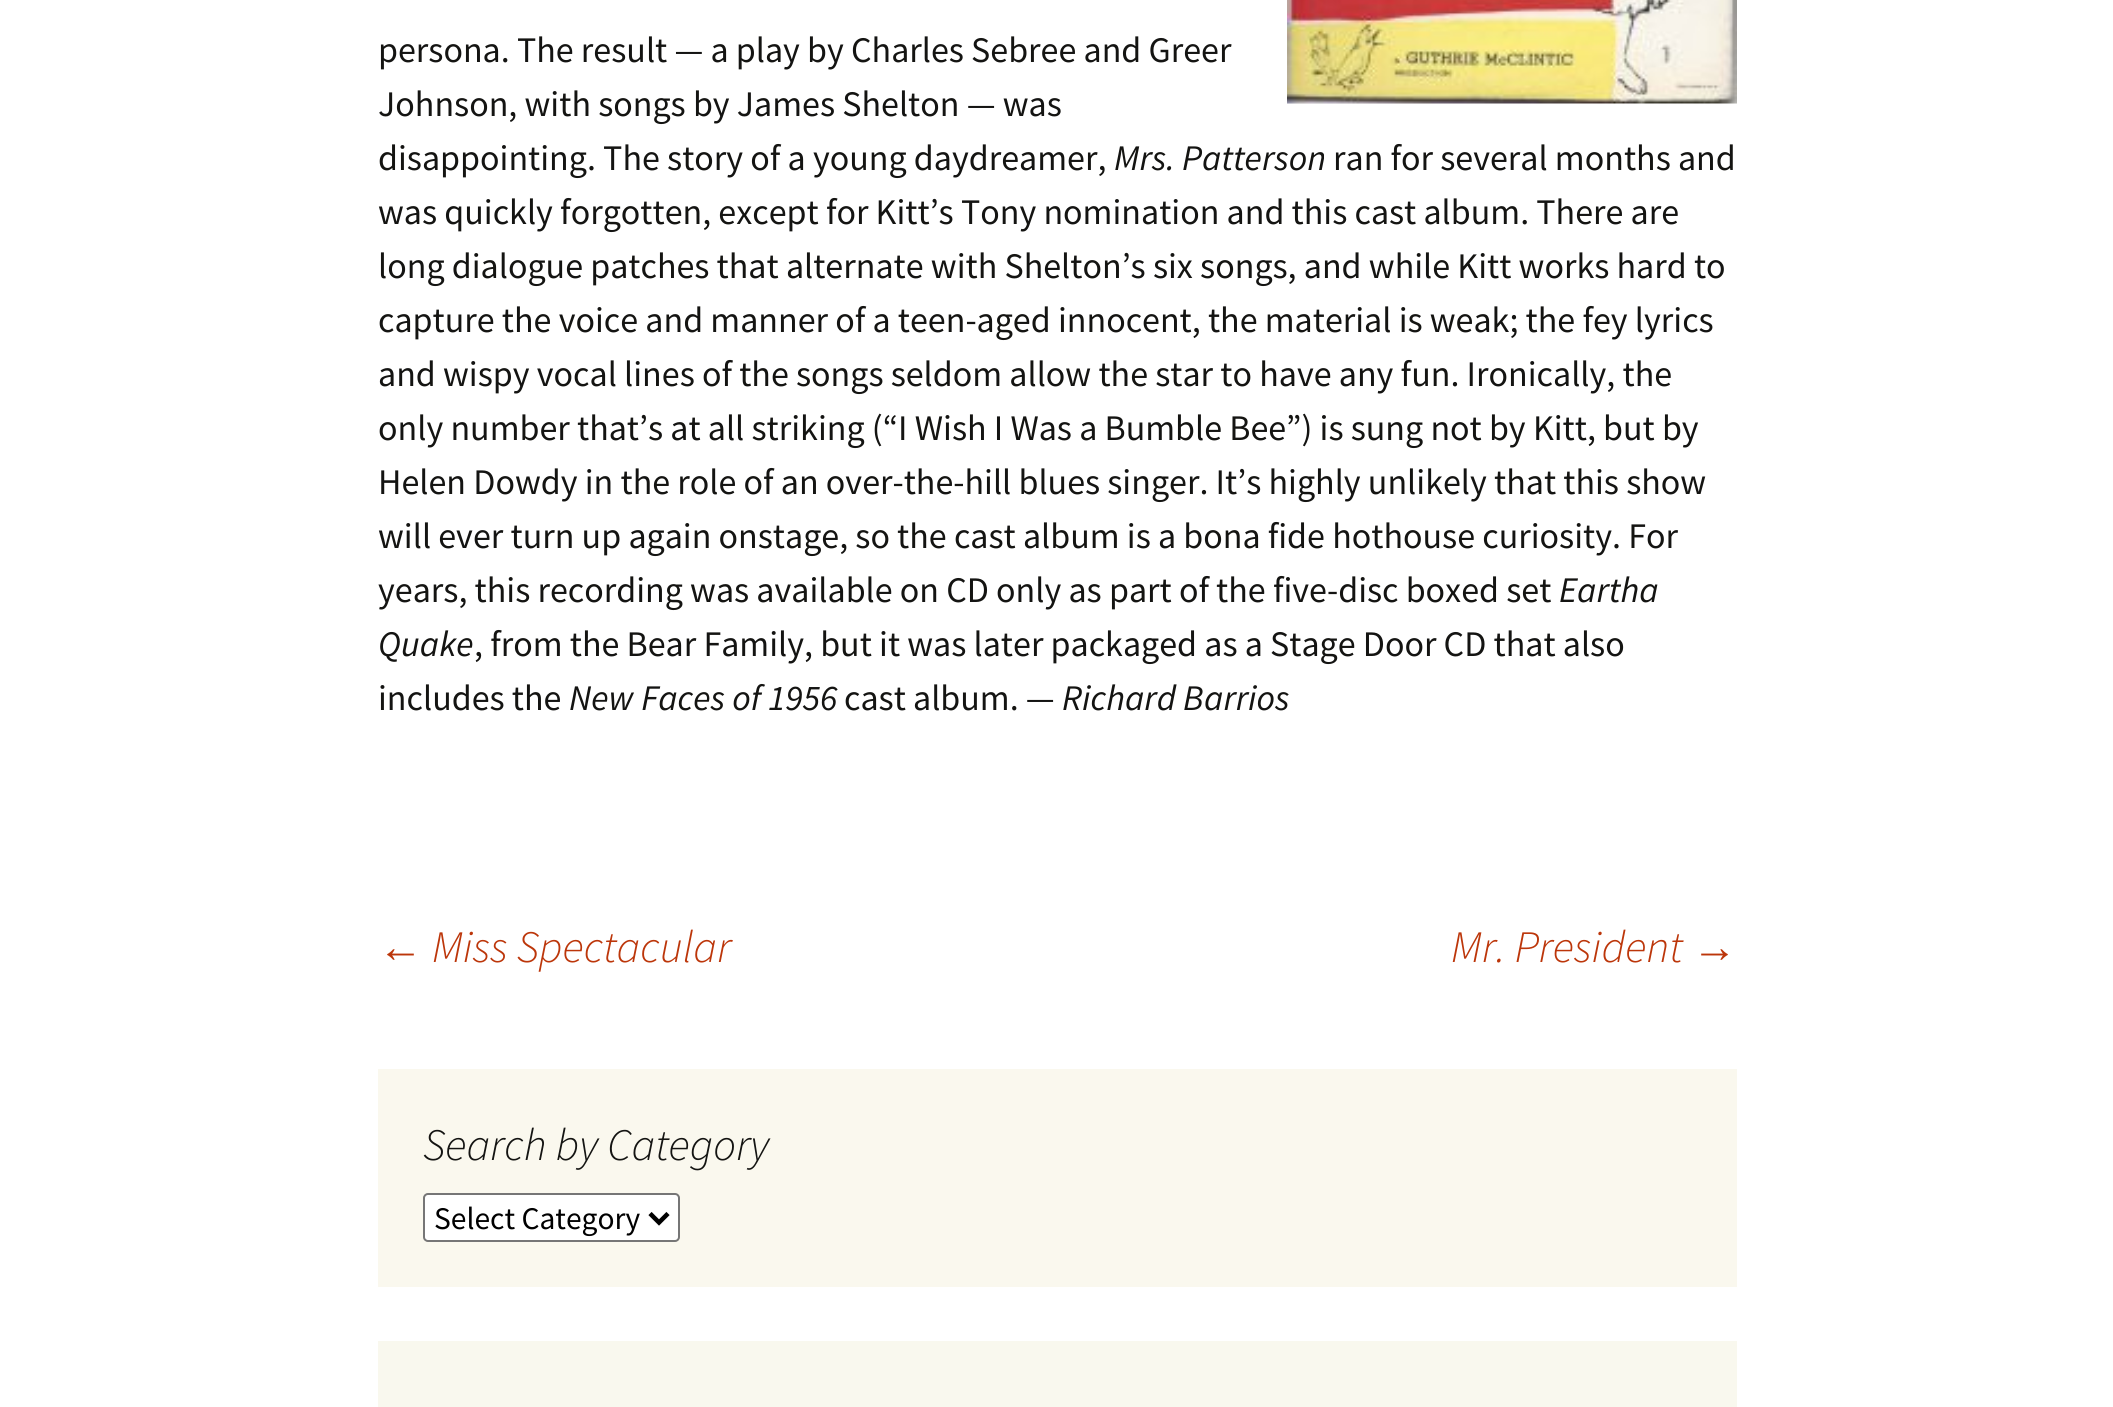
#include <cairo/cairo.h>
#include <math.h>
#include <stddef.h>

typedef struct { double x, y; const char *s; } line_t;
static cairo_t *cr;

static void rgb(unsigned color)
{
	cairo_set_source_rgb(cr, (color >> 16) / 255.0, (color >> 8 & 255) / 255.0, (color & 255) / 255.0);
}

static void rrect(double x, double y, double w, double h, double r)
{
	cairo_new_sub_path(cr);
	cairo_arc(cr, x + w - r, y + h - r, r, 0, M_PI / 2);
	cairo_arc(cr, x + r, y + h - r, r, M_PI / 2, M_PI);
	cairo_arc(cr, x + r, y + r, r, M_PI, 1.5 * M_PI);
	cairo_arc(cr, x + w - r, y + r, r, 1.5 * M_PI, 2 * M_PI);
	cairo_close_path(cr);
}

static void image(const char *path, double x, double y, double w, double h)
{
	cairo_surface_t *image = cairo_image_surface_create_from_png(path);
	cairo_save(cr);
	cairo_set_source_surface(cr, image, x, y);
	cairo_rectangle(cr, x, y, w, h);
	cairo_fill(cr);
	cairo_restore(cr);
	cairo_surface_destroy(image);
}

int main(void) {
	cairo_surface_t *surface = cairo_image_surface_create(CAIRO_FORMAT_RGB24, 2113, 1407);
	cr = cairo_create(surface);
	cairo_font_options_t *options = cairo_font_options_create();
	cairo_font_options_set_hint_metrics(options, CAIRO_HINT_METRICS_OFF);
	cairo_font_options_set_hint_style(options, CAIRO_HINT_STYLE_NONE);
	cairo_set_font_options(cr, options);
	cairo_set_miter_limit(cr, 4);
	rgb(0xffffff);
	cairo_paint(cr);
	image("img/1.png", 1287, 0, 450, 104);
	rgb(0xfaf8ee);
	cairo_rectangle(cr, 378, 1069, 1359, 218);
	cairo_fill(cr);
	rgb(0xffffff);
	rrect(424, 1194, 255, 47, 4);
	cairo_fill_preserve(cr);
	rgb(0x767676);
	cairo_stroke(cr);
	cairo_new_path(cr);
	cairo_move_to(cr, 650, 1213.5);
	cairo_line_to(cr, 659, 1222.5);
	cairo_line_to(cr, 668, 1213.5);
	rgb(0x000000);
	cairo_set_line_width(cr, 4.5);
	cairo_stroke(cr);
	rgb(0xf9f8ee);
	cairo_rectangle(cr, 378, 1341, 1359, 66);
	cairo_fill(cr);
	cairo_select_font_face(cr, "Source Sans Pro", CAIRO_FONT_SLANT_NORMAL, CAIRO_FONT_WEIGHT_NORMAL);
	cairo_set_font_size(cr, 36);
	rgb(0x141412);
	{
		static const line_t items[] = {
			{378, 62, "persona. The result — a play by Charles Sebree and Greer"},
			{378, 116, "Johnson, with songs by James Shelton — was"},
			{378, 170, "disappointing. The story of a young daydreamer,"},
		};
		for (size_t i = 0; i < sizeof items / sizeof *items; i++) {
			cairo_move_to(cr, items[i].x, items[i].y);
			cairo_show_text(cr, items[i].s);
		}
	}
	cairo_select_font_face(cr, "Source Sans Pro", CAIRO_FONT_SLANT_ITALIC, CAIRO_FONT_WEIGHT_NORMAL);
	cairo_move_to(cr, 1114, 170);
	cairo_show_text(cr, "Mrs. Patterson");
	cairo_select_font_face(cr, "Source Sans Pro", CAIRO_FONT_SLANT_NORMAL, CAIRO_FONT_WEIGHT_NORMAL);
	{
		static const line_t items[] = {
			{1333, 170, "ran for several months and"},
			{378, 224, "was quickly forgotten, except for Kitt’s Tony nomination and this cast album. There are"},
			{378, 278, "long dialogue patches that alternate with Shelton’s six songs, and while Kitt works hard to"},
			{378, 332, "capture the voice and manner of a teen-aged innocent, the material is weak; the fey lyrics"},
			{378, 386, "and wispy vocal lines of the songs seldom allow the star to have any fun. Ironically, the"},
			{378, 440, "only number that’s at all striking (“I Wish I Was a Bumble Bee”) is sung not by Kitt, but by"},
			{378, 494, "Helen Dowdy in the role of an over-the-hill blues singer. It’s highly unlikely that this show"},
			{378, 548, "will ever turn up again onstage, so the cast album is a bona fide hothouse curiosity. For"},
			{378, 602, "years, this recording was available on CD only as part of the five-disc boxed set"},
		};
		for (size_t i = 0; i < sizeof items / sizeof *items; i++) {
			cairo_move_to(cr, items[i].x, items[i].y);
			cairo_show_text(cr, items[i].s);
		}
	}
	cairo_select_font_face(cr, "Source Sans Pro", CAIRO_FONT_SLANT_ITALIC, CAIRO_FONT_WEIGHT_NORMAL);
	cairo_move_to(cr, 1559, 602);
	cairo_show_text(cr, "Eartha");
	cairo_move_to(cr, 378, 656);
	cairo_show_text(cr, "Quake");
	cairo_select_font_face(cr, "Source Sans Pro", CAIRO_FONT_SLANT_NORMAL, CAIRO_FONT_WEIGHT_NORMAL);
	cairo_move_to(cr, 474, 656);
	cairo_show_text(cr, ", from the Bear Family, but it was later packaged as a Stage Door CD that also");
	cairo_move_to(cr, 378, 710);
	cairo_show_text(cr, "includes the");
	cairo_select_font_face(cr, "Source Sans Pro", CAIRO_FONT_SLANT_ITALIC, CAIRO_FONT_WEIGHT_NORMAL);
	cairo_move_to(cr, 569, 710);
	cairo_show_text(cr, "New Faces of 1956");
	cairo_select_font_face(cr, "Source Sans Pro", CAIRO_FONT_SLANT_NORMAL, CAIRO_FONT_WEIGHT_NORMAL);
	cairo_move_to(cr, 844, 710);
	cairo_show_text(cr, "cast album. —");
	cairo_select_font_face(cr, "Source Sans Pro", CAIRO_FONT_SLANT_ITALIC, CAIRO_FONT_WEIGHT_NORMAL);
	cairo_move_to(cr, 1062, 710);
	cairo_show_text(cr, "Richard Barrios");
	cairo_select_font_face(cr, "Liberation Sans", CAIRO_FONT_SLANT_ITALIC, CAIRO_FONT_WEIGHT_NORMAL);
	cairo_set_font_size(cr, 45);
	rgb(0xbc360a);
	cairo_move_to(cr, 378, 962);
	cairo_show_text(cr, "←");
	cairo_select_font_face(cr, "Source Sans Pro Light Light", CAIRO_FONT_SLANT_ITALIC, CAIRO_FONT_WEIGHT_NORMAL);
	cairo_move_to(cr, 432, 962);
	cairo_show_text(cr, "Miss Spectacular");
	cairo_move_to(cr, 1451, 962);
	cairo_show_text(cr, "Mr. President");
	cairo_select_font_face(cr, "Liberation Sans", CAIRO_FONT_SLANT_ITALIC, CAIRO_FONT_WEIGHT_NORMAL);
	cairo_move_to(cr, 1692, 962);
	cairo_show_text(cr, "→");
	cairo_select_font_face(cr, "Source Sans Pro Light Light", CAIRO_FONT_SLANT_ITALIC, CAIRO_FONT_WEIGHT_NORMAL);
	rgb(0x141412);
	cairo_move_to(cr, 423, 1160);
	cairo_show_text(cr, "Search by Category");
	cairo_select_font_face(cr, "Source Sans Pro", CAIRO_FONT_SLANT_NORMAL, CAIRO_FONT_WEIGHT_NORMAL);
	cairo_set_font_size(cr, 31.5);
	rgb(0x000000);
	cairo_move_to(cr, 434, 1229);
	cairo_show_text(cr, "Select Category");
	cairo_surface_write_to_png(surface, "page.png");
	cairo_font_options_destroy(options);
	cairo_destroy(cr);
	cairo_surface_destroy(surface);
	return 0;
}
